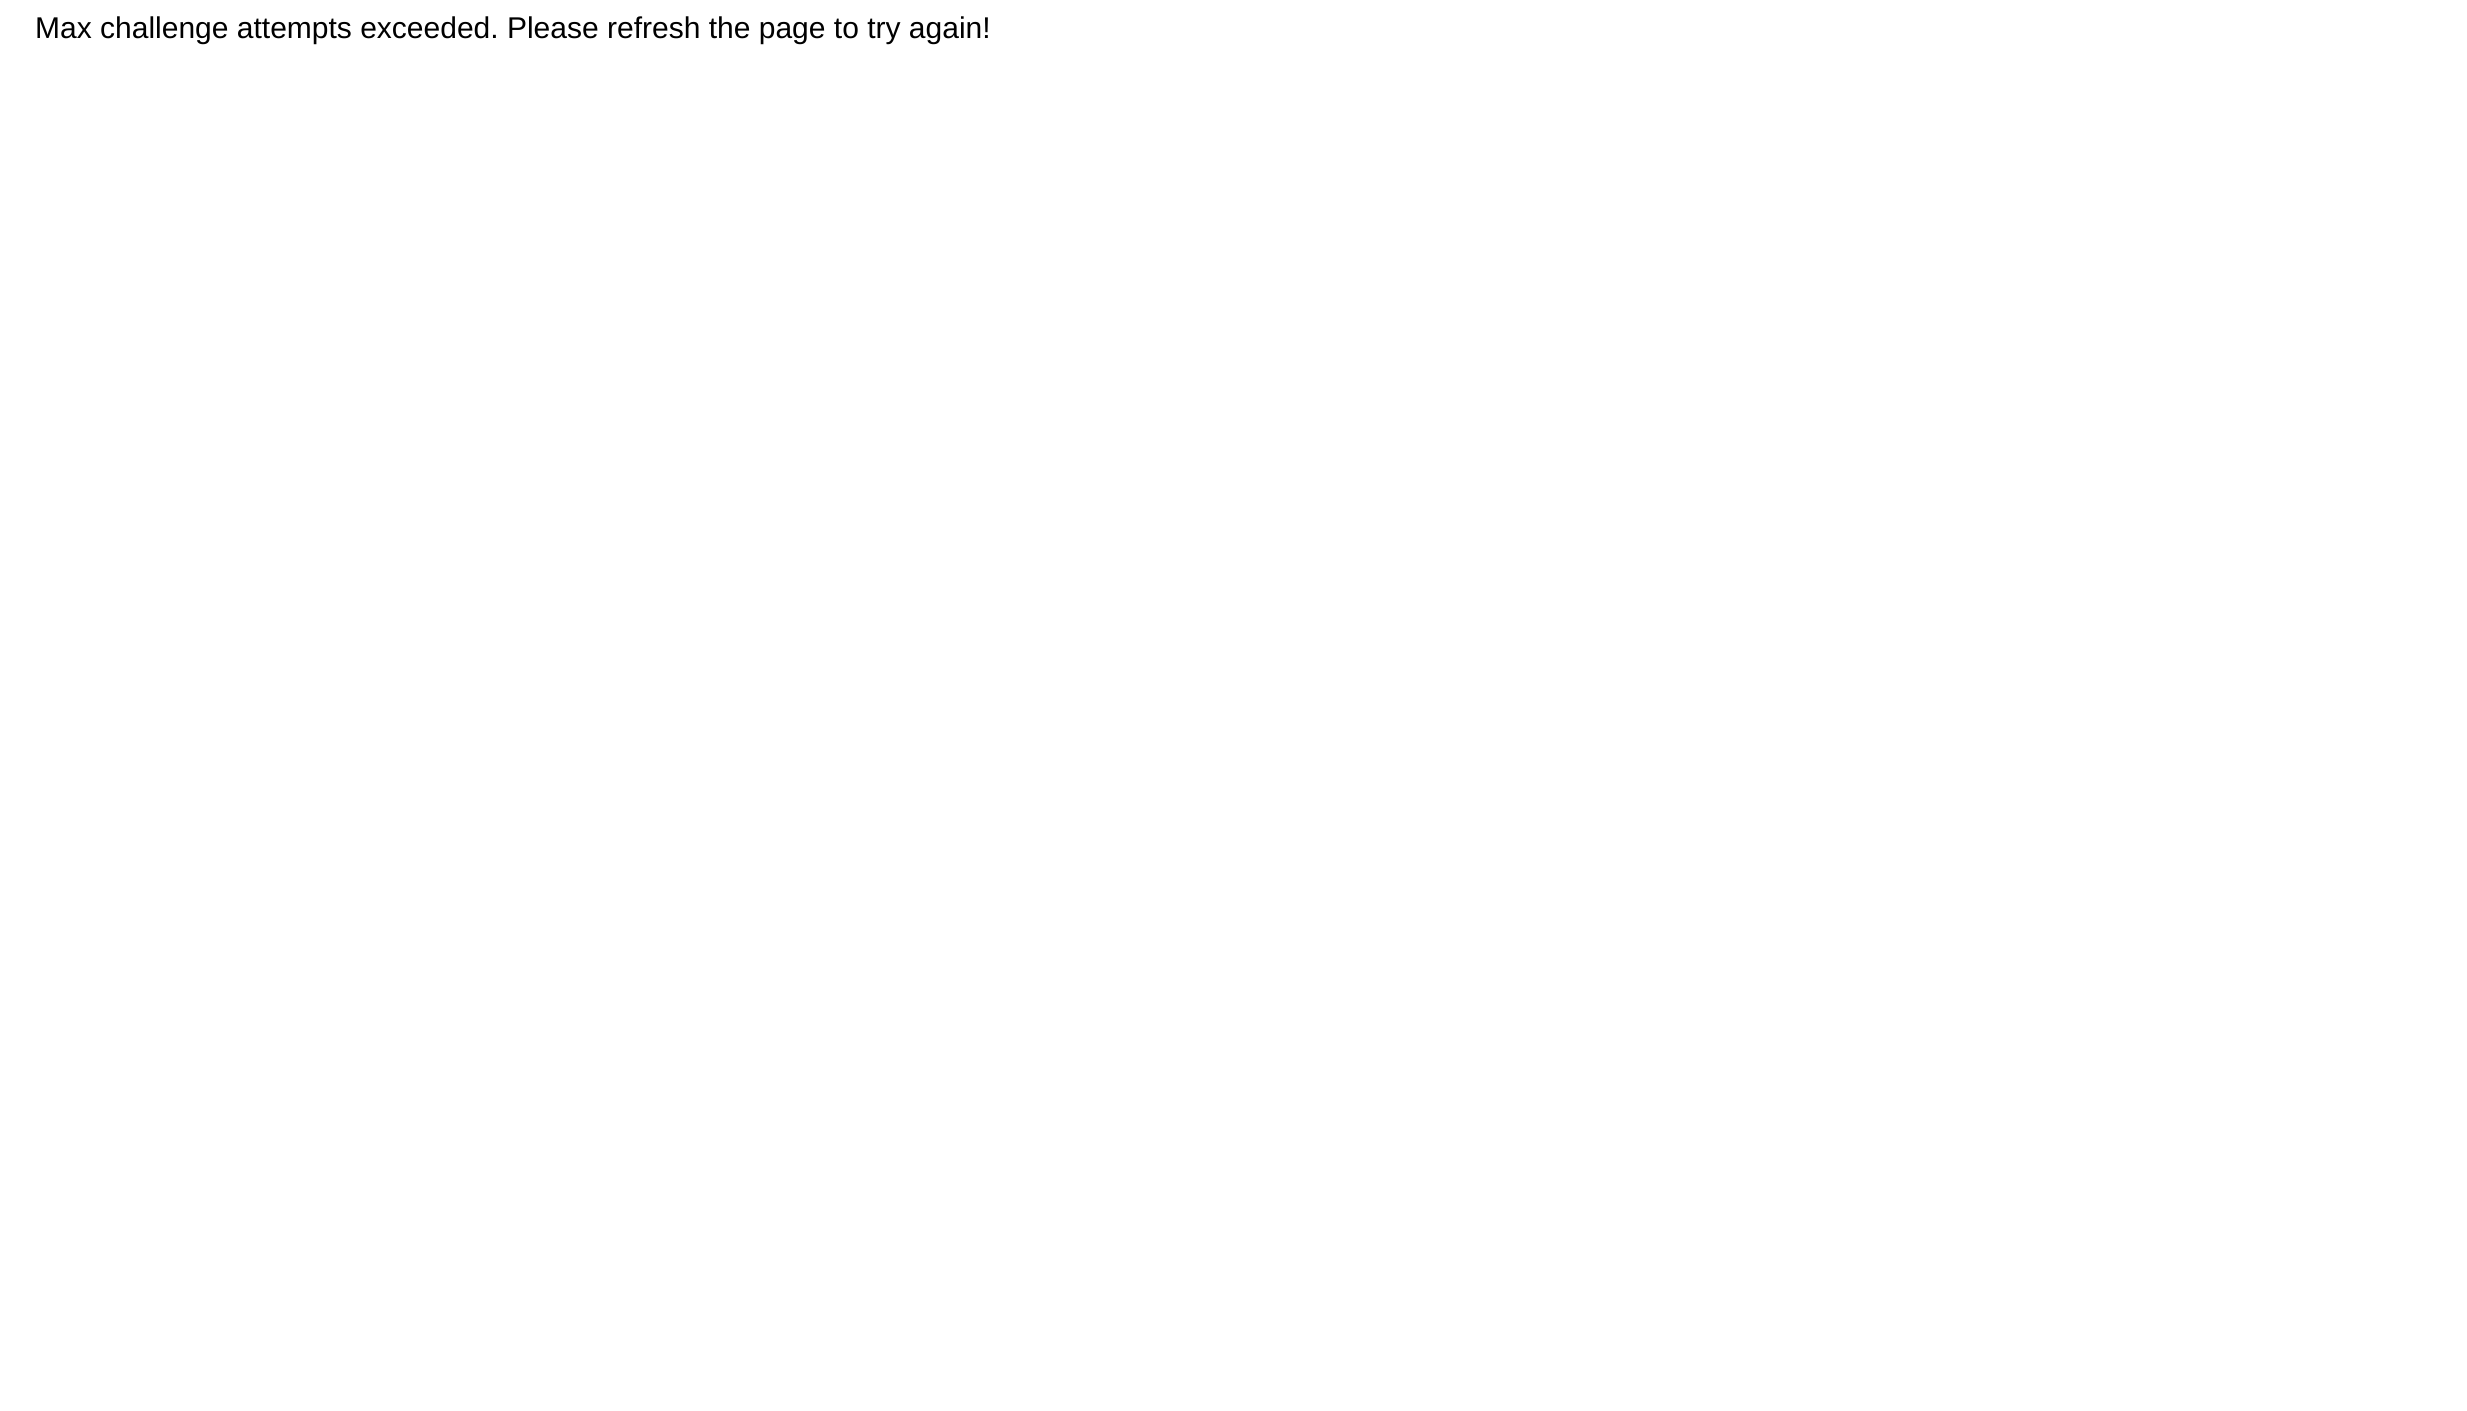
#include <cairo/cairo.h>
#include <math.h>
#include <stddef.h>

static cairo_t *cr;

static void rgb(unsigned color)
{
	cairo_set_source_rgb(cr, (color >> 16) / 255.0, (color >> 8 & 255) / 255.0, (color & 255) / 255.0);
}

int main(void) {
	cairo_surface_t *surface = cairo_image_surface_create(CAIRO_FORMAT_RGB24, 2467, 1411);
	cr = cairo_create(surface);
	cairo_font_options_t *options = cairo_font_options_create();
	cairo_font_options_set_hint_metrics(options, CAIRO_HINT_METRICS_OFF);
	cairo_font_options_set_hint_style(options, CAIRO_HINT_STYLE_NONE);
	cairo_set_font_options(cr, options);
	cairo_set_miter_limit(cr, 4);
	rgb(0xffffff);
	cairo_paint(cr);
	cairo_select_font_face(cr, "Liberation Sans", CAIRO_FONT_SLANT_NORMAL, CAIRO_FONT_WEIGHT_NORMAL);
	cairo_set_font_size(cr, 30);
	rgb(0x000000);
	cairo_move_to(cr, 35, 38);
	cairo_show_text(cr, "Max challenge attempts exceeded. Please refresh the page to try again!");
	cairo_surface_write_to_png(surface, "page.png");
	cairo_font_options_destroy(options);
	cairo_destroy(cr);
	cairo_surface_destroy(surface);
	return 0;
}
